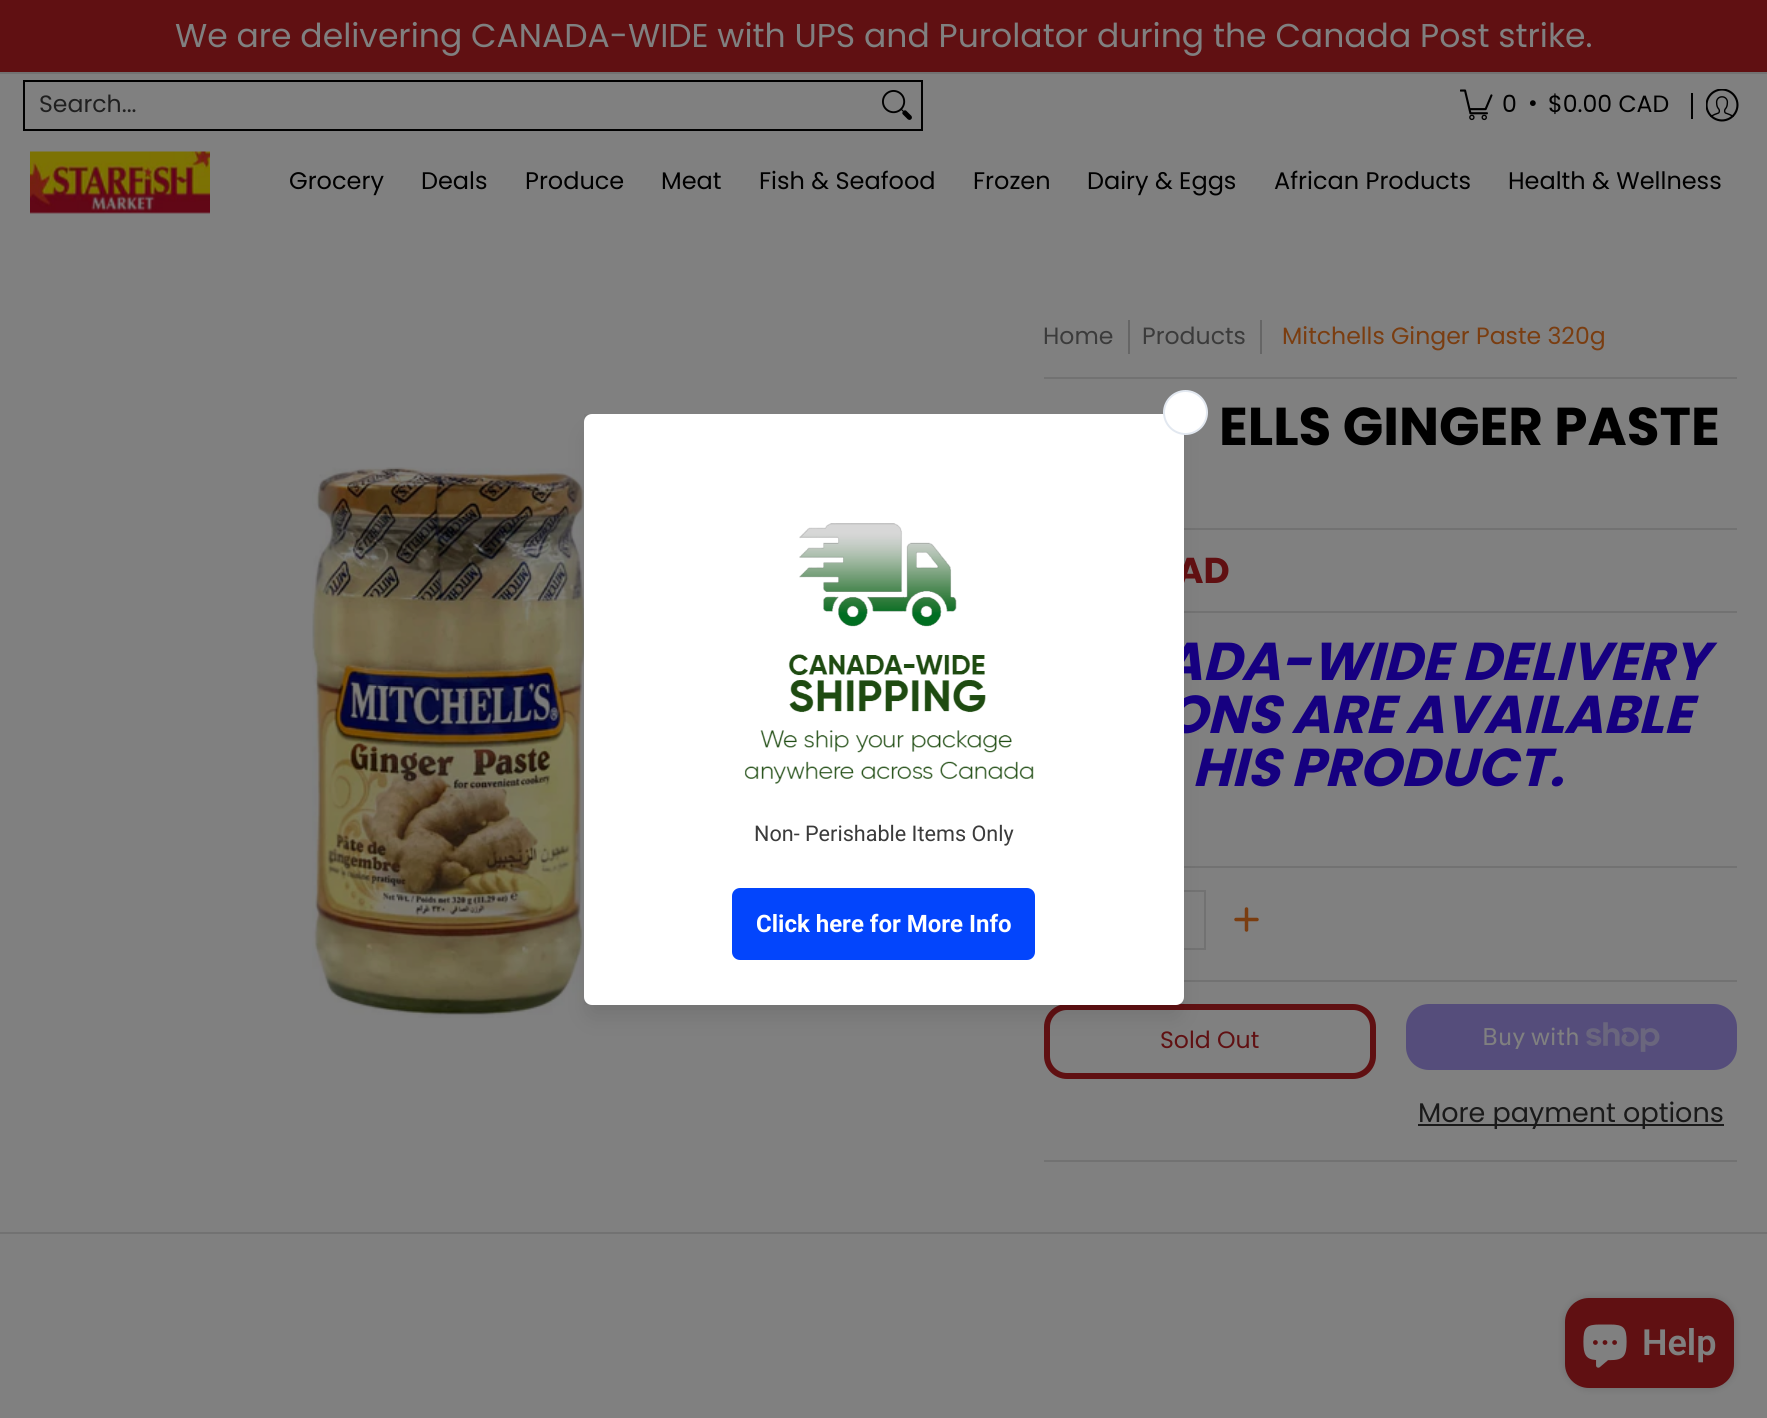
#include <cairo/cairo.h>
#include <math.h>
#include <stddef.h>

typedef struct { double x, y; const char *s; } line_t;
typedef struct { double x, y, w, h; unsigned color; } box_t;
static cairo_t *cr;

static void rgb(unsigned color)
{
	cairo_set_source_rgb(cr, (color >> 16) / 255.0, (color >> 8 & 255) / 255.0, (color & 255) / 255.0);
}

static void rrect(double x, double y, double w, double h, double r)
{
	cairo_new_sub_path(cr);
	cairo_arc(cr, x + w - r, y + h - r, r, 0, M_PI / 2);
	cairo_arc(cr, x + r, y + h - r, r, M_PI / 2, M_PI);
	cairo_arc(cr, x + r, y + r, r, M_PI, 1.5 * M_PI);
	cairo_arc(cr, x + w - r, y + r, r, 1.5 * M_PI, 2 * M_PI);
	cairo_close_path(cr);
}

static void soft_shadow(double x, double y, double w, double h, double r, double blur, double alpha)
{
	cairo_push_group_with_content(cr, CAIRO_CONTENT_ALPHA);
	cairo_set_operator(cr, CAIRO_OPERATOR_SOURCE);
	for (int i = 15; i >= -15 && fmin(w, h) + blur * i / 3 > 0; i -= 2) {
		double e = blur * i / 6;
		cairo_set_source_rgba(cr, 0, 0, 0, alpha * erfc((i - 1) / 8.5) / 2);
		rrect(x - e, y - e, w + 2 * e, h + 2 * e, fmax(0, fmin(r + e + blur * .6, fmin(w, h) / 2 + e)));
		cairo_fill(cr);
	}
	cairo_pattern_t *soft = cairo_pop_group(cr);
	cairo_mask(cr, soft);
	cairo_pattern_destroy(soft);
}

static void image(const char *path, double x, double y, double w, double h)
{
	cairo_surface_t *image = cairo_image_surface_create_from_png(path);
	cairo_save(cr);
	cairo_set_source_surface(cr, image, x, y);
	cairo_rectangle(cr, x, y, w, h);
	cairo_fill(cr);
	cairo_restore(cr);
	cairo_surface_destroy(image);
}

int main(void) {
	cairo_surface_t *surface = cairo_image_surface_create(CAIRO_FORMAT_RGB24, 1767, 1418);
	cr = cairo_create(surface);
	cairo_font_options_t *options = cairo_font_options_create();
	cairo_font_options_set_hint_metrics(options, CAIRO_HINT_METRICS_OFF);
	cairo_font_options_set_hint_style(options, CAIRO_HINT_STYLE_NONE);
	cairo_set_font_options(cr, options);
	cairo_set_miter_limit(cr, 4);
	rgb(0x808080);
	cairo_paint(cr);
	rgb(0x601012);
	cairo_rectangle(cr, 0, 0, 1767, 72);
	cairo_fill(cr);
	rgb(0x727272);
	cairo_rectangle(cr, 0, 72, 1767, 2);
	cairo_fill(cr);
	cairo_rectangle(cr, 24, 81, 898, 49);
	rgb(0x000000);
	cairo_stroke(cr);
	image("img/1.png", 882, 90, 30, 30);
	image("img/2.png", 1460, 89, 33, 32);
	cairo_rectangle(cr, 1691, 93, 2, 26);
	cairo_fill(cr);
	image("img/3.png", 1706, 89, 33, 33);
	image("img/4.png", 30, 151, 180, 63);
	image("img/6.png", 312, 467, 274, 551);
	{
		static const box_t items[] = {
			{1184, 528, 553, 2, 0x727272},
			{1184, 611, 553, 2, 0x727272},
			{1184, 866, 553, 2, 0x727272},
			{1184, 980, 553, 2, 0x727272},
		};
		for (size_t i = 0; i < sizeof items / sizeof *items; i++) {
			rgb(items[i].color);
			cairo_rectangle(cr, items[i].x, items[i].y, items[i].w, items[i].h);
			cairo_fill(cr);
		}
	}
	cairo_rectangle(cr, 1126, 891, 79, 58);
	cairo_stroke(cr);
	rrect(1047, 1007, 326, 69, 20);
	rgb(0x601012);
	cairo_set_line_width(cr, 6);
	cairo_stroke(cr);
	rgb(0x000000);
	soft_shadow(588, 434, 591, 582, 4, 11, 0.1);
	rgb(0x727272);
	cairo_rectangle(cr, 1044, 377, 693, 2);
	cairo_fill(cr);
	cairo_save(cr);
	cairo_rectangle(cr, 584, 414, 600, 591);
	cairo_clip(cr);
	rgb(0x000000);
	soft_shadow(588, 419, 591, 582, 4, 15, 0.12);
	cairo_restore(cr);
	{
		static const box_t items[] = {
			{0, 1232, 1767, 2, 0x727272},
			{1128, 320, 2, 34, 0x666666},
			{1260, 320, 2, 34, 0x666666},
		};
		for (size_t i = 0; i < sizeof items / sizeof *items; i++) {
			rgb(items[i].color);
			cairo_rectangle(cr, items[i].x, items[i].y, items[i].w, items[i].h);
			cairo_fill(cr);
		}
	}
	cairo_new_path(cr);
	cairo_move_to(cr, 1246.5, 909);
	cairo_line_to(cr, 1246.5, 930);
	cairo_move_to(cr, 1257, 919.5);
	cairo_line_to(cr, 1236, 919.5);
	rgb(0x7a3d10);
	cairo_set_line_width(cr, 3.5);
	cairo_set_line_cap(cr, CAIRO_LINE_CAP_ROUND);
	cairo_set_line_join(cr, CAIRO_LINE_JOIN_ROUND);
	cairo_stroke(cr);
	rgb(0x727272);
	cairo_rectangle(cr, 1044, 1160, 693, 2);
	cairo_fill(cr);
	rgb(0x554d7b);
	rrect(1406, 1004, 331, 66, 23);
	cairo_fill(cr);
	image("img/7.png", 1586, 1022, 74, 30);
	rgb(0x1a1a1a);
	cairo_rectangle(cr, 1418, 1124, 306, 2);
	cairo_fill(cr);
	rgb(0x000000);
	soft_shadow(1565, 1298, 169, 90, 24, 4, 0.15);
	rgb(0x601012);
	rrect(1565, 1298, 169, 90, 24);
	cairo_fill(cr);
	image("img/8.png", 1583, 1324, 44, 44);
	cairo_select_font_face(cr, "Poppins", CAIRO_FONT_SLANT_NORMAL, CAIRO_FONT_WEIGHT_NORMAL);
	cairo_set_font_size(cr, 33);
	rgb(0x808080);
	cairo_move_to(cr, 175, 47);
	cairo_show_text(cr, "We are delivering CANADA-WIDE with UPS and Purolator during the Canada Post strike.");
	cairo_set_font_size(cr, 23.6);
	rgb(0x202020);
	cairo_move_to(cr, 39, 112);
	cairo_show_text(cr, "Search...");
	rgb(0x000000);
	{
		static const line_t items[] = {
			{1502, 112, "0"},
			{1528, 111, "•"},
			{1548, 112, "$0.00 CAD"},
		};
		for (size_t i = 0; i < sizeof items / sizeof *items; i++) {
			cairo_move_to(cr, items[i].x, items[i].y);
			cairo_show_text(cr, items[i].s);
		}
	}
	cairo_set_font_size(cr, 24);
	{
		static const line_t items[] = {
			{289, 189, "Grocery"},
			{421, 189, "Deals"},
			{525, 189, "Produce"},
			{661, 189, "Meat"},
			{759, 189, "Fish & Seafood"},
			{973, 189, "Frozen"},
			{1087, 189, "Dairy & Eggs"},
			{1274, 189, "African Products"},
			{1508, 189, "Health & Wellness"},
		};
		for (size_t i = 0; i < sizeof items / sizeof *items; i++) {
			cairo_move_to(cr, items[i].x, items[i].y);
			cairo_show_text(cr, items[i].s);
		}
	}
	cairo_set_font_size(cr, 23.6);
	rgb(0x3b3b3b);
	cairo_move_to(cr, 1043, 344);
	cairo_show_text(cr, "Home");
	cairo_move_to(cr, 1142, 344);
	cairo_show_text(cr, "Products");
	rgb(0x7a3d10);
	cairo_move_to(cr, 1282, 344);
	cairo_show_text(cr, "Mitchells Ginger Paste 320g");
	cairo_select_font_face(cr, "Poppins", CAIRO_FONT_SLANT_NORMAL, CAIRO_FONT_WEIGHT_BOLD);
	cairo_set_font_size(cr, 53.25);
	rgb(0x000000);
	cairo_move_to(cr, 1219, 445);
	cairo_show_text(cr, "ELLS GINGER PASTE");
	cairo_set_font_size(cr, 36);
	rgb(0x601012);
	cairo_move_to(cr, 1177, 583);
	cairo_show_text(cr, "AD");
	cairo_select_font_face(cr, "Poppins", CAIRO_FONT_SLANT_ITALIC, CAIRO_FONT_WEIGHT_BOLD);
	cairo_set_font_size(cr, 53.25);
	rgb(0x160080);
	cairo_move_to(cr, 1163, 680);
	cairo_show_text(cr, "ADA-WIDE DELIVERY");
	cairo_move_to(cr, 1165, 733);
	cairo_show_text(cr, "ONS ARE AVAILABLE");
	rgb(0xffffff);
	rrect(584, 414, 600, 591, 8);
	cairo_fill(cr);
	cairo_arc(cr, 1185.5, 412.5, 21.5, 0, 2 * M_PI);
	cairo_fill_preserve(cr);
	rgb(0xe2e8f0);
	cairo_set_line_width(cr, 2);
	cairo_set_line_cap(cr, CAIRO_LINE_CAP_BUTT);
	cairo_set_line_join(cr, CAIRO_LINE_JOIN_MITER);
	cairo_stroke(cr);
	rgb(0x0345fc);
	rrect(732, 888, 303, 72, 8);
	cairo_fill(cr);
	cairo_select_font_face(cr, "Roboto", CAIRO_FONT_SLANT_NORMAL, CAIRO_FONT_WEIGHT_BOLD);
	cairo_set_font_size(cr, 24);
	rgb(0xffffff);
	cairo_move_to(cr, 756, 932);
	cairo_show_text(cr, "Click here for More Info");
	cairo_select_font_face(cr, "Roboto", CAIRO_FONT_SLANT_NORMAL, CAIRO_FONT_WEIGHT_NORMAL);
	cairo_set_font_size(cr, 21.6);
	rgb(0x3b3b3b);
	cairo_move_to(cr, 754, 841);
	cairo_show_text(cr, "Non- Perishable Items Only");
	image("img/5.png", 744, 523, 290, 261);
	cairo_select_font_face(cr, "Poppins", CAIRO_FONT_SLANT_ITALIC, CAIRO_FONT_WEIGHT_BOLD);
	cairo_set_font_size(cr, 53.25);
	rgb(0x160080);
	cairo_move_to(cr, 1192, 786);
	cairo_show_text(cr, "HIS PRODUCT.");
	cairo_select_font_face(cr, "Poppins", CAIRO_FONT_SLANT_NORMAL, CAIRO_FONT_WEIGHT_NORMAL);
	cairo_set_font_size(cr, 23.6);
	rgb(0x601012);
	cairo_move_to(cr, 1160, 1048);
	cairo_show_text(cr, "Sold Out");
	cairo_select_font_face(cr, "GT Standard", CAIRO_FONT_SLANT_NORMAL, CAIRO_FONT_WEIGHT_NORMAL);
	cairo_set_font_size(cr, 24);
	rgb(0x808080);
	cairo_move_to(cr, 1482, 1045);
	cairo_show_text(cr, "Buy with");
	cairo_select_font_face(cr, "Poppins", CAIRO_FONT_SLANT_NORMAL, CAIRO_FONT_WEIGHT_NORMAL);
	cairo_set_font_size(cr, 27);
	rgb(0x1a1a1a);
	cairo_move_to(cr, 1418, 1122);
	cairo_show_text(cr, "More payment options");
	cairo_select_font_face(cr, "Roboto SemiBold", CAIRO_FONT_SLANT_NORMAL, CAIRO_FONT_WEIGHT_NORMAL);
	cairo_set_font_size(cr, 36);
	rgb(0x808080);
	cairo_move_to(cr, 1642, 1355);
	cairo_show_text(cr, "Help");
	cairo_surface_write_to_png(surface, "page.png");
	cairo_font_options_destroy(options);
	cairo_destroy(cr);
	cairo_surface_destroy(surface);
	return 0;
}
